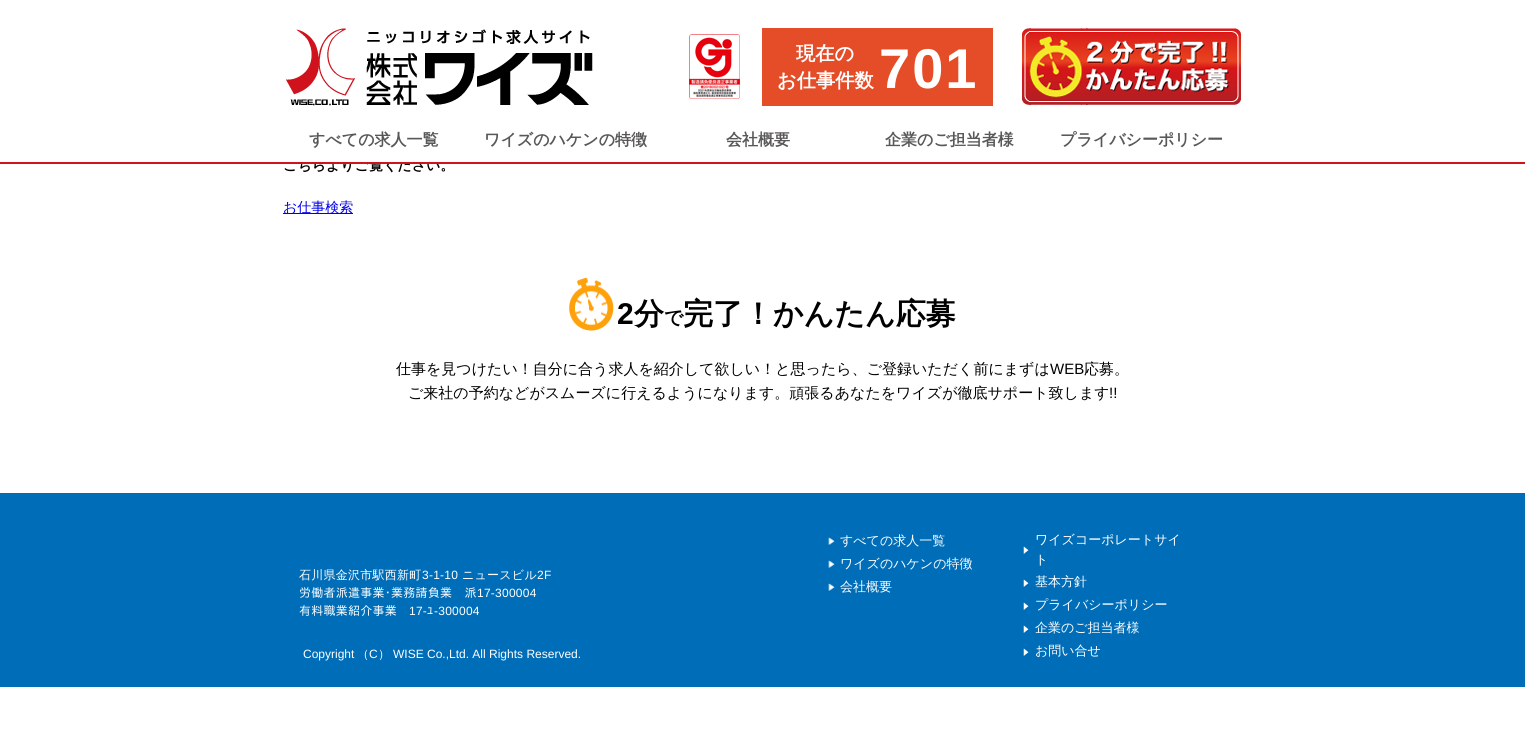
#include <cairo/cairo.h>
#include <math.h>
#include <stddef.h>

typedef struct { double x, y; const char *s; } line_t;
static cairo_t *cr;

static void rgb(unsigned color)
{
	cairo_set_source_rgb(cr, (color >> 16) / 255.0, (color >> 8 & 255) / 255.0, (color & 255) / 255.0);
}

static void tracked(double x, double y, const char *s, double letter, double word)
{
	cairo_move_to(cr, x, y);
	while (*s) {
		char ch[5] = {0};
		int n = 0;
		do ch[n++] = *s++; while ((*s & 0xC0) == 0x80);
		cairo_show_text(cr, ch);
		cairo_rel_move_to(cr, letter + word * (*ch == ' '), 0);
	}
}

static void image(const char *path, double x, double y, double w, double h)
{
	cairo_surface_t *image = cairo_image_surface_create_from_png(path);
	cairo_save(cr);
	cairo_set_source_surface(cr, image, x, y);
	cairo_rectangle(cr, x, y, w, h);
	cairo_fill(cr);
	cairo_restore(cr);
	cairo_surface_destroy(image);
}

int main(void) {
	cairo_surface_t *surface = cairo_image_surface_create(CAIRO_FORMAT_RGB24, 1525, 735);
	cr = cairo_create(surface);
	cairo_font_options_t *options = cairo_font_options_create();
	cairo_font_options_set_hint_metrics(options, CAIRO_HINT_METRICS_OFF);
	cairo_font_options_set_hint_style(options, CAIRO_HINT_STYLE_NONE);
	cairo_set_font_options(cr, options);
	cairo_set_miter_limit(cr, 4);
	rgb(0xffffff);
	cairo_paint(cr);
	image("img/1.png", 286, 28, 307, 78);
	image("img/2.png", 689, 34, 51, 65);
	rgb(0xe54c28);
	cairo_rectangle(cr, 762, 28, 231, 78);
	cairo_fill(cr);
	image("img/3.png", 1022, 28, 220, 77);
	rgb(0x0000ee);
	cairo_rectangle(cr, 283, 213, 70, 1);
	cairo_fill(cr);
	image("img/4.png", 569, 277, 45, 54);
	rgb(0x006db8);
	cairo_rectangle(cr, 0, 493, 1525, 194);
	cairo_fill(cr);
	image("img/5.png", 828, 537, 7, 8);
	image("img/5.png", 828, 560, 7, 8);
	image("img/5.png", 828, 583, 7, 8);
	image("img/6.png", 1023, 546, 6, 8);
	image("img/6.png", 1023, 579, 6, 8);
	image("img/6.png", 1023, 602, 6, 8);
	image("img/6.png", 1023, 625, 6, 8);
	image("img/6.png", 1023, 648, 6, 8);
	cairo_select_font_face(cr, "WenQuanYi Zen Hei", CAIRO_FONT_SLANT_NORMAL, CAIRO_FONT_WEIGHT_BOLD);
	cairo_set_font_size(cr, 19.25);
	rgb(0xffffff);
	cairo_move_to(cr, 796, 60);
	cairo_show_text(cr, "現在の");
	cairo_move_to(cr, 777, 87);
	cairo_show_text(cr, "お仕事件数");
	cairo_select_font_face(cr, "Liberation Sans", CAIRO_FONT_SLANT_NORMAL, CAIRO_FONT_WEIGHT_BOLD);
	cairo_set_font_size(cr, 56);
	tracked(879, 88, "701", 2, 0);
	cairo_select_font_face(cr, "WenQuanYi Zen Hei", CAIRO_FONT_SLANT_NORMAL, CAIRO_FONT_WEIGHT_BOLD);
	cairo_set_font_size(cr, 16);
	rgb(0x595757);
	{
		static const line_t items[] = {
			{309, 145, "すべての求人一覧"},
			{484, 145, "ワイズのハケンの特徴"},
			{726, 145, "会社概要"},
			{885, 145, "企業のご担当者様"},
			{1060, 145, "プライバシーポリシー"},
		};
		for (size_t i = 0; i < sizeof items / sizeof *items; i++) {
			cairo_move_to(cr, items[i].x, items[i].y);
			cairo_show_text(cr, items[i].s);
		}
	}
	cairo_set_font_size(cr, 14);
	rgb(0x000000);
	cairo_move_to(cr, 283, 170);
	cairo_show_text(cr, "こちらよりご覧ください。");
	rgb(0xcf121b);
	cairo_rectangle(cr, 0, 162, 1525, 2);
	cairo_fill(cr);
	rgb(0xffffff);
	cairo_rectangle(cr, 285, 158, 144, 4);
	cairo_fill(cr);
	cairo_select_font_face(cr, "WenQuanYi Zen Hei Medium", CAIRO_FONT_SLANT_NORMAL, CAIRO_FONT_WEIGHT_NORMAL);
	rgb(0x0000ee);
	cairo_move_to(cr, 283, 212);
	cairo_show_text(cr, "お仕事検索");
	cairo_select_font_face(cr, "Liberation Sans", CAIRO_FONT_SLANT_NORMAL, CAIRO_FONT_WEIGHT_BOLD);
	cairo_set_font_size(cr, 30);
	rgb(0x000000);
	cairo_move_to(cr, 617, 324);
	cairo_show_text(cr, "2");
	cairo_select_font_face(cr, "WenQuanYi Zen Hei", CAIRO_FONT_SLANT_NORMAL, CAIRO_FONT_WEIGHT_BOLD);
	cairo_move_to(cr, 634, 324);
	cairo_show_text(cr, "分");
	cairo_set_font_size(cr, 19);
	cairo_move_to(cr, 664, 324);
	cairo_show_text(cr, "で");
	cairo_set_font_size(cr, 30);
	cairo_move_to(cr, 683, 324);
	cairo_show_text(cr, "完了！かんたん応募");
	cairo_select_font_face(cr, "WenQuanYi Zen Hei Medium", CAIRO_FONT_SLANT_NORMAL, CAIRO_FONT_WEIGHT_NORMAL);
	cairo_set_font_size(cr, 15);
	cairo_move_to(cr, 396, 374);
	cairo_show_text(cr, "仕事を見つけたい！自分に合う求人を紹介して欲しい！と思ったら、ご登録いただく前にまずは");
	cairo_select_font_face(cr, "Liberation Sans", CAIRO_FONT_SLANT_NORMAL, CAIRO_FONT_WEIGHT_NORMAL);
	cairo_move_to(cr, 1050, 374);
	cairo_show_text(cr, "WEB");
	cairo_select_font_face(cr, "WenQuanYi Zen Hei Medium", CAIRO_FONT_SLANT_NORMAL, CAIRO_FONT_WEIGHT_NORMAL);
	cairo_move_to(cr, 1084, 374);
	cairo_show_text(cr, "応募。");
	cairo_move_to(cr, 408, 398);
	cairo_show_text(cr, "ご来社の予約などがスムーズに行えるようになります。頑張るあなたをワイズが徹底サポート致します");
	cairo_select_font_face(cr, "Liberation Sans", CAIRO_FONT_SLANT_NORMAL, CAIRO_FONT_WEIGHT_NORMAL);
	cairo_move_to(cr, 1109, 398);
	cairo_show_text(cr, "!!");
	cairo_select_font_face(cr, "WenQuanYi Zen Hei Medium", CAIRO_FONT_SLANT_NORMAL, CAIRO_FONT_WEIGHT_NORMAL);
	cairo_set_font_size(cr, 12);
	rgb(0xffffff);
	tracked(299, 579, "石川県金沢市駅西新町", 0.25, 0);
	cairo_select_font_face(cr, "Liberation Sans", CAIRO_FONT_SLANT_NORMAL, CAIRO_FONT_WEIGHT_NORMAL);
	tracked(422, 579, "3-1-10", 0.25, 0);
	cairo_select_font_face(cr, "WenQuanYi Zen Hei Medium", CAIRO_FONT_SLANT_NORMAL, CAIRO_FONT_WEIGHT_NORMAL);
	tracked(462, 579, "ニュースビル", 0.25, 0);
	cairo_select_font_face(cr, "Liberation Sans", CAIRO_FONT_SLANT_NORMAL, CAIRO_FONT_WEIGHT_NORMAL);
	tracked(537, 579, "2F", 0.25, 0);
	cairo_select_font_face(cr, "IPAGothic", CAIRO_FONT_SLANT_NORMAL, CAIRO_FONT_WEIGHT_NORMAL);
	tracked(299, 597, "労働者派遣事業･業務請負業　派", 0.25, 0);
	cairo_select_font_face(cr, "Liberation Sans", CAIRO_FONT_SLANT_NORMAL, CAIRO_FONT_WEIGHT_NORMAL);
	tracked(477, 597, "17-300004", 0.25, 0);
	cairo_select_font_face(cr, "IPAGothic", CAIRO_FONT_SLANT_NORMAL, CAIRO_FONT_WEIGHT_NORMAL);
	tracked(299, 615, "有料職業紹介事業", 0.25, 0);
	cairo_select_font_face(cr, "Liberation Sans", CAIRO_FONT_SLANT_NORMAL, CAIRO_FONT_WEIGHT_NORMAL);
	tracked(409, 615, "17-", 0.25, 0);
	cairo_select_font_face(cr, "IPAGothic", CAIRO_FONT_SLANT_NORMAL, CAIRO_FONT_WEIGHT_NORMAL);
	tracked(427, 615, "ﾕ", 0.25, 0);
	cairo_select_font_face(cr, "Liberation Sans", CAIRO_FONT_SLANT_NORMAL, CAIRO_FONT_WEIGHT_NORMAL);
	tracked(434, 615, "-300004", 0.25, 0);
	cairo_move_to(cr, 303, 658);
	cairo_show_text(cr, "Copyright");
	cairo_select_font_face(cr, "WenQuanYi Zen Hei Medium", CAIRO_FONT_SLANT_NORMAL, CAIRO_FONT_WEIGHT_NORMAL);
	cairo_move_to(cr, 357, 658);
	cairo_show_text(cr, "（");
	cairo_select_font_face(cr, "Liberation Sans", CAIRO_FONT_SLANT_NORMAL, CAIRO_FONT_WEIGHT_NORMAL);
	cairo_move_to(cr, 369, 658);
	cairo_show_text(cr, "C");
	cairo_select_font_face(cr, "WenQuanYi Zen Hei Medium", CAIRO_FONT_SLANT_NORMAL, CAIRO_FONT_WEIGHT_NORMAL);
	cairo_move_to(cr, 378, 658);
	cairo_show_text(cr, "）");
	cairo_select_font_face(cr, "Liberation Sans", CAIRO_FONT_SLANT_NORMAL, CAIRO_FONT_WEIGHT_NORMAL);
	cairo_move_to(cr, 393, 658);
	cairo_show_text(cr, "WISE Co.,Ltd. All Rights Reserved.");
	cairo_select_font_face(cr, "WenQuanYi Zen Hei Medium", CAIRO_FONT_SLANT_NORMAL, CAIRO_FONT_WEIGHT_NORMAL);
	cairo_set_font_size(cr, 13);
	{
		static const line_t items[] = {
			{840, 545, "すべての求人一覧"},
			{840, 568, "ワイズのハケンの特徴"},
			{840, 591, "会社概要"},
			{1035, 544, "ワイズコーポレートサイ"},
			{1035, 564, "ト"},
			{1035, 586, "基本方針"},
			{1035, 609, "プライバシーポリシー"},
			{1035, 632, "企業のご担当者様"},
			{1035, 655, "お問い合せ"},
		};
		for (size_t i = 0; i < sizeof items / sizeof *items; i++) {
			cairo_move_to(cr, items[i].x, items[i].y);
			cairo_show_text(cr, items[i].s);
		}
	}
	cairo_surface_write_to_png(surface, "page.png");
	cairo_font_options_destroy(options);
	cairo_destroy(cr);
	cairo_surface_destroy(surface);
	return 0;
}
